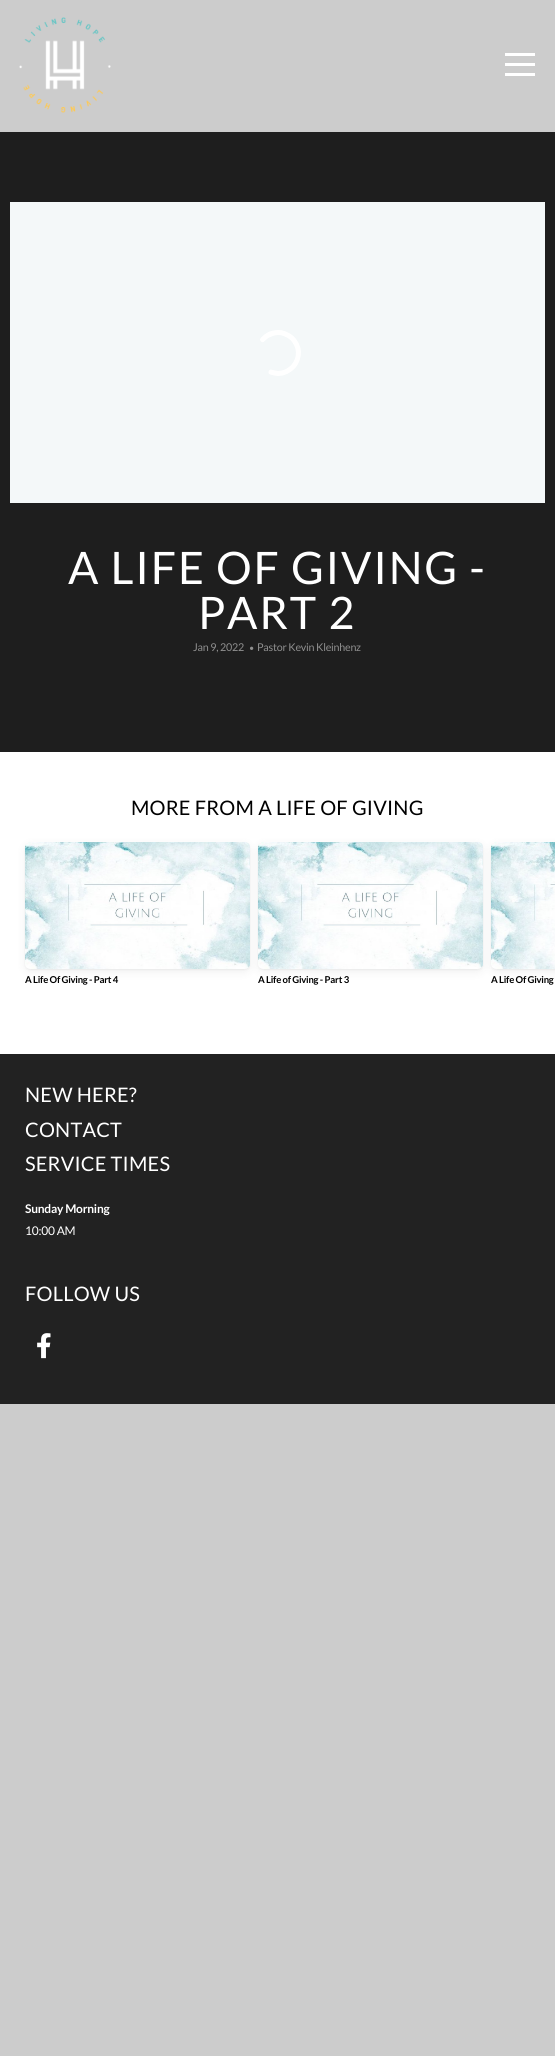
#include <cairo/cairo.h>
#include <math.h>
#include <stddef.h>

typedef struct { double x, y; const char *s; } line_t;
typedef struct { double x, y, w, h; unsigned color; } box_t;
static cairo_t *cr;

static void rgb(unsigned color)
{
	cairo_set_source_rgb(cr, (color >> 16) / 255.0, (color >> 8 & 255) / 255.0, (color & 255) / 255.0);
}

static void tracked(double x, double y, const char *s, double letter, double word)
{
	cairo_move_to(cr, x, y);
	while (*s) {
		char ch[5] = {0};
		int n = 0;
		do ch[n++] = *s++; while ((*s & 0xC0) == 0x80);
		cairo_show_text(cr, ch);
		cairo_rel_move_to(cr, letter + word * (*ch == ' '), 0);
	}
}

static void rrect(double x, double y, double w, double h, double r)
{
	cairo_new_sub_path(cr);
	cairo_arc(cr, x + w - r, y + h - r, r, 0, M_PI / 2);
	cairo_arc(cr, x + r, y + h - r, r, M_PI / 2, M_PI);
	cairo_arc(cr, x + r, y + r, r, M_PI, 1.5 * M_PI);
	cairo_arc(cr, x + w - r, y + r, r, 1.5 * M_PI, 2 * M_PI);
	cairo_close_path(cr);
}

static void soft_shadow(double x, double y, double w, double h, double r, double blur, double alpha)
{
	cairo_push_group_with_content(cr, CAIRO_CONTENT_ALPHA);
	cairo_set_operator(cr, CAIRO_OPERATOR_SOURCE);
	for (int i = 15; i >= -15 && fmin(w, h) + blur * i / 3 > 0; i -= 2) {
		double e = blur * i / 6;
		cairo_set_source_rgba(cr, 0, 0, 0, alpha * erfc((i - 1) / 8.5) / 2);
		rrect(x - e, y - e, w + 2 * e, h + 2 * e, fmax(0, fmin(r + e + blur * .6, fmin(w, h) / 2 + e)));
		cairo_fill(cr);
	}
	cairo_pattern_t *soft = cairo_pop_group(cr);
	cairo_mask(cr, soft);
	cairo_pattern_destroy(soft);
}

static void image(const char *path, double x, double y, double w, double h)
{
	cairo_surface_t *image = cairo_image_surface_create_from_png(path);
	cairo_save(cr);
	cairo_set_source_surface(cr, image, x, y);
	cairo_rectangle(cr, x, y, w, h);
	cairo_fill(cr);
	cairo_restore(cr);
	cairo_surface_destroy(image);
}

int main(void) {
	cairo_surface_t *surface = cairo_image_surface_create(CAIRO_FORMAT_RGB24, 555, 2056);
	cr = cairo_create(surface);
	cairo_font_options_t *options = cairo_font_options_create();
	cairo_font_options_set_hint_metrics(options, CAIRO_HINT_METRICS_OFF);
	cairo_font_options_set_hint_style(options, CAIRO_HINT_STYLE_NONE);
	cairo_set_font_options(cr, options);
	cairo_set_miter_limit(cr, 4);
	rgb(0xcccccc);
	cairo_paint(cr);
	image("img/1.png", 19, 17, 92, 96);
	{
		static const box_t items[] = {
			{505, 53, 30, 3, 0xffffff},
			{505, 63, 30, 3, 0xffffff},
			{505, 73, 30, 3, 0xffffff},
			{0, 132, 555, 620, 0x1e1e1e},
		};
		for (size_t i = 0; i < sizeof items / sizeof *items; i++) {
			rgb(items[i].color);
			cairo_rectangle(cr, items[i].x, items[i].y, items[i].w, items[i].h);
			cairo_fill(cr);
		}
	}
	image("img/2.png", 10, 202, 535, 301);
	rgb(0xffffff);
	cairo_rectangle(cr, 0, 752, 555, 302);
	cairo_fill(cr);
	rgb(0x000000);
	soft_shadow(25, 843, 225, 127, 5, 1, 0.04);
	soft_shadow(25, 845, 225, 127, 5, 5, 0.06);
	image("img/3.png", 25, 842, 225, 127);
	soft_shadow(258, 843, 225, 127, 5, 1, 0.04);
	soft_shadow(258, 845, 225, 127, 5, 5, 0.06);
	image("img/4.png", 258, 842, 225, 127);
	soft_shadow(491, 843, 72, 127, 5, 1, 0.04);
	soft_shadow(491, 845, 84, 127, 5, 5, 0.06);
	image("img/5.png", 491, 842, 64, 127);
	rgb(0x222222);
	cairo_rectangle(cr, 0, 1054, 555, 350);
	cairo_fill(cr);
	image("img/6.png", 37, 1333, 14, 26);
	cairo_select_font_face(cr, "Lato", CAIRO_FONT_SLANT_NORMAL, CAIRO_FONT_WEIGHT_NORMAL);
	cairo_set_font_size(cr, 44.75);
	rgb(0xffffff);
	tracked(68, 584, "A LIFE OF GIVING -", 1.75, 0);
	tracked(198, 629, "PART 2", 1.75, 0);
	cairo_set_font_size(cr, 10.75);
	rgb(0x8f8f8f);
	tracked(193, 651, "Jan 9, 2022", -0.25, 0);
	cairo_set_font_size(cr, 9);
	tracked(249, 651, "•", -0.25, 0);
	cairo_set_font_size(cr, 10.75);
	tracked(257, 651, "Pastor Kevin Kleinhenz", -0.25, 0);
	cairo_set_font_size(cr, 20);
	rgb(0x000000);
	tracked(131, 815, "MORE FROM A LIFE OF GIVING", 0.2, 0);
	cairo_select_font_face(cr, "Lato", CAIRO_FONT_SLANT_NORMAL, CAIRO_FONT_WEIGHT_BOLD);
	cairo_set_font_size(cr, 9.5);
	{
		static const line_t items[] = {
			{25, 983, "A Life Of Giving - Part 4"},
			{258, 983, "A Life of Giving - Part 3"},
			{491, 983, "A Life Of Giving"},
		};
		for (size_t i = 0; i < sizeof items / sizeof *items; i++) {
			tracked(items[i].x, items[i].y, items[i].s, -0.25, 0);
		}
	}
	cairo_select_font_face(cr, "Lato", CAIRO_FONT_SLANT_NORMAL, CAIRO_FONT_WEIGHT_NORMAL);
	cairo_set_font_size(cr, 20);
	rgb(0xffffff);
	{
		static const line_t items[] = {
			{25, 1102, "NEW HERE?"},
			{25, 1137, "CONTACT"},
			{25, 1171, "SERVICE TIMES"},
		};
		for (size_t i = 0; i < sizeof items / sizeof *items; i++) {
			tracked(items[i].x, items[i].y, items[i].s, 0.2, 0);
		}
	}
	cairo_select_font_face(cr, "Lato", CAIRO_FONT_SLANT_NORMAL, CAIRO_FONT_WEIGHT_BOLD);
	cairo_set_font_size(cr, 12);
	tracked(25, 1213, "Sunday Morning", -0.25, 0);
	cairo_select_font_face(cr, "Lato", CAIRO_FONT_SLANT_NORMAL, CAIRO_FONT_WEIGHT_NORMAL);
	tracked(25, 1235, "10:00 AM", -0.25, 0);
	cairo_set_font_size(cr, 20);
	tracked(25, 1301, "FOLLOW US", 0.2, 0);
	cairo_surface_write_to_png(surface, "page.png");
	cairo_font_options_destroy(options);
	cairo_destroy(cr);
	cairo_surface_destroy(surface);
	return 0;
}
